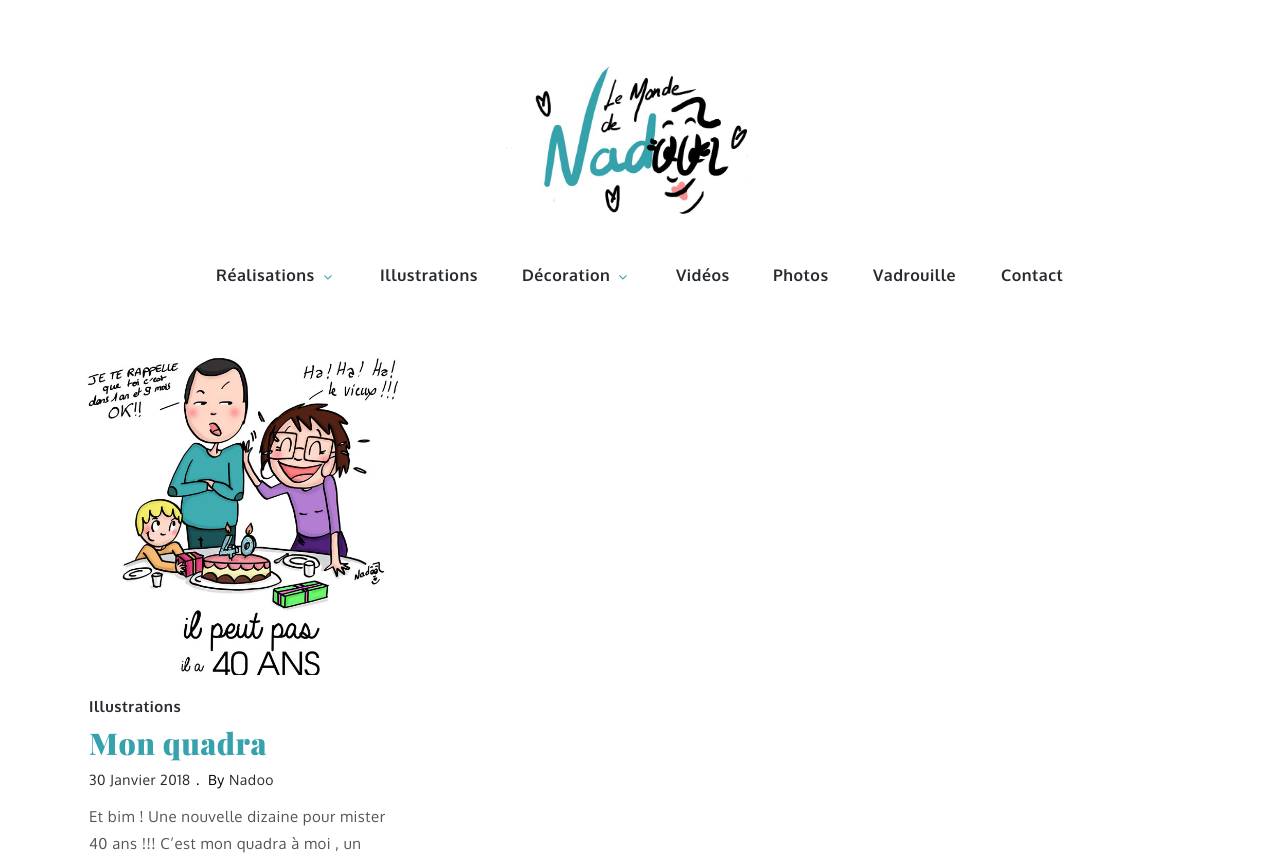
#include <cairo/cairo.h>
#include <math.h>
#include <stddef.h>

typedef struct { double x, y; const char *s; } line_t;
static cairo_t *cr;

static void rgb(unsigned color)
{
	cairo_set_source_rgb(cr, (color >> 16) / 255.0, (color >> 8 & 255) / 255.0, (color & 255) / 255.0);
}

static void tracked(double x, double y, const char *s, double letter, double word)
{
	cairo_move_to(cr, x, y);
	while (*s) {
		char ch[5] = {0};
		int n = 0;
		do ch[n++] = *s++; while ((*s & 0xC0) == 0x80);
		cairo_show_text(cr, ch);
		cairo_rel_move_to(cr, letter + word * (*ch == ' '), 0);
	}
}

static void image(const char *path, double x, double y, double w, double h)
{
	cairo_surface_t *image = cairo_image_surface_create_from_png(path);
	cairo_save(cr);
	cairo_set_source_surface(cr, image, x, y);
	cairo_rectangle(cr, x, y, w, h);
	cairo_fill(cr);
	cairo_restore(cr);
	cairo_surface_destroy(image);
}

int main(void) {
	cairo_surface_t *surface = cairo_image_surface_create(CAIRO_FORMAT_RGB24, 1279, 856);
	cr = cairo_create(surface);
	cairo_font_options_t *options = cairo_font_options_create();
	cairo_font_options_set_hint_metrics(options, CAIRO_HINT_METRICS_OFF);
	cairo_font_options_set_hint_style(options, CAIRO_HINT_STYLE_NONE);
	cairo_set_font_options(cr, options);
	cairo_set_miter_limit(cr, 4);
	rgb(0xffffff);
	cairo_paint(cr);
	image("img/1.png", 506, 66, 245, 148);
	image("img/2.png", 324, 275, 8, 5);
	image("img/2.png", 619, 275, 8, 5);
	image("img/3.png", 86, 357, 312, 346);
	rgb(0xffffff);
	cairo_rectangle(cr, 189, 675, 131, 28);
	cairo_fill(cr);
	cairo_select_font_face(cr, "Oxygen", CAIRO_FONT_SLANT_NORMAL, CAIRO_FONT_WEIGHT_BOLD);
	cairo_set_font_size(cr, 16);
	rgb(0x272b2f);
	{
		static const line_t items[] = {
			{216, 281, "Réalisations"},
			{380, 281, "Illustrations"},
			{522, 281, "Décoration"},
			{676, 281, "Vidéos"},
			{773, 281, "Photos"},
			{873, 281, "Vadrouille"},
			{1001, 281, "Contact"},
		};
		for (size_t i = 0; i < sizeof items / sizeof *items; i++) {
			tracked(items[i].x, items[i].y, items[i].s, 0.5, 0);
		}
	}
	cairo_set_font_size(cr, 15);
	tracked(89, 712, "Illustrations", 0.5, 0);
	cairo_select_font_face(cr, "Playfair Display Black", CAIRO_FONT_SLANT_NORMAL, CAIRO_FONT_WEIGHT_NORMAL);
	cairo_set_font_size(cr, 30);
	rgb(0x35a2ac);
	tracked(89, 755, "Mon quadra", 0.5, 0);
	cairo_select_font_face(cr, "Oxygen", CAIRO_FONT_SLANT_NORMAL, CAIRO_FONT_WEIGHT_NORMAL);
	cairo_set_font_size(cr, 14);
	rgb(0x272b2f);
	tracked(89, 785, "30 Janvier 2018", 0.5, 0);
	rgb(0x000000);
	tracked(196, 785, ".", 0.5, 0);
	tracked(208, 785, "By", 0.5, 0);
	rgb(0x272b2f);
	tracked(229, 785, "Nadoo", 0.5, 0);
	cairo_set_font_size(cr, 15);
	rgb(0x555555);
	tracked(89, 822, "Et bim ! Une nouvelle dizaine pour mister", 0.5, 0);
	tracked(89, 849, "40 ans !!! C’est mon quadra à moi , un", 0.5, 0);
	cairo_surface_write_to_png(surface, "page.png");
	cairo_font_options_destroy(options);
	cairo_destroy(cr);
	cairo_surface_destroy(surface);
	return 0;
}
